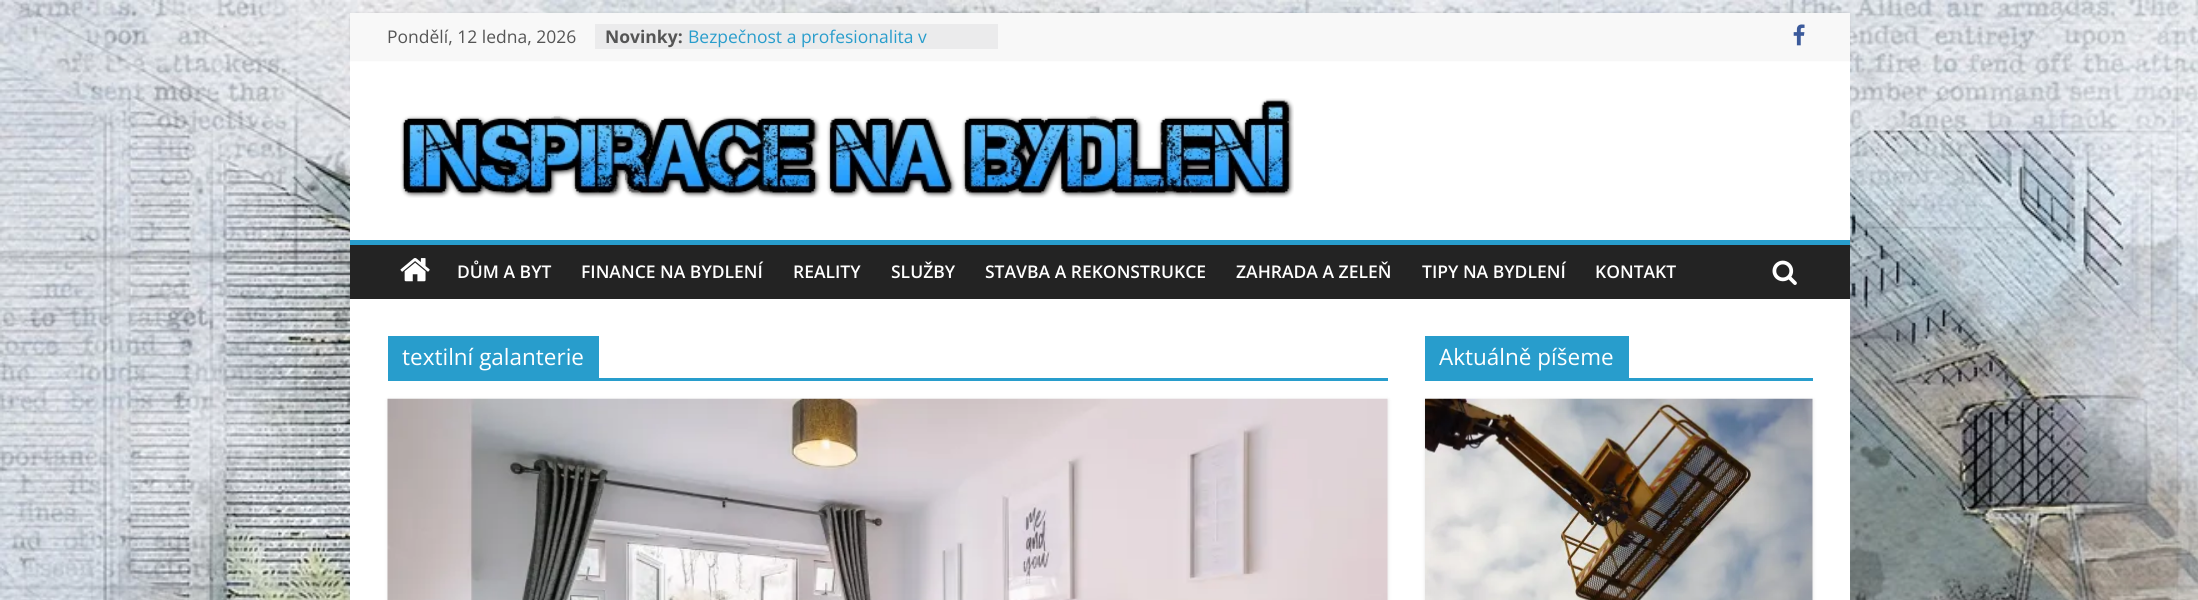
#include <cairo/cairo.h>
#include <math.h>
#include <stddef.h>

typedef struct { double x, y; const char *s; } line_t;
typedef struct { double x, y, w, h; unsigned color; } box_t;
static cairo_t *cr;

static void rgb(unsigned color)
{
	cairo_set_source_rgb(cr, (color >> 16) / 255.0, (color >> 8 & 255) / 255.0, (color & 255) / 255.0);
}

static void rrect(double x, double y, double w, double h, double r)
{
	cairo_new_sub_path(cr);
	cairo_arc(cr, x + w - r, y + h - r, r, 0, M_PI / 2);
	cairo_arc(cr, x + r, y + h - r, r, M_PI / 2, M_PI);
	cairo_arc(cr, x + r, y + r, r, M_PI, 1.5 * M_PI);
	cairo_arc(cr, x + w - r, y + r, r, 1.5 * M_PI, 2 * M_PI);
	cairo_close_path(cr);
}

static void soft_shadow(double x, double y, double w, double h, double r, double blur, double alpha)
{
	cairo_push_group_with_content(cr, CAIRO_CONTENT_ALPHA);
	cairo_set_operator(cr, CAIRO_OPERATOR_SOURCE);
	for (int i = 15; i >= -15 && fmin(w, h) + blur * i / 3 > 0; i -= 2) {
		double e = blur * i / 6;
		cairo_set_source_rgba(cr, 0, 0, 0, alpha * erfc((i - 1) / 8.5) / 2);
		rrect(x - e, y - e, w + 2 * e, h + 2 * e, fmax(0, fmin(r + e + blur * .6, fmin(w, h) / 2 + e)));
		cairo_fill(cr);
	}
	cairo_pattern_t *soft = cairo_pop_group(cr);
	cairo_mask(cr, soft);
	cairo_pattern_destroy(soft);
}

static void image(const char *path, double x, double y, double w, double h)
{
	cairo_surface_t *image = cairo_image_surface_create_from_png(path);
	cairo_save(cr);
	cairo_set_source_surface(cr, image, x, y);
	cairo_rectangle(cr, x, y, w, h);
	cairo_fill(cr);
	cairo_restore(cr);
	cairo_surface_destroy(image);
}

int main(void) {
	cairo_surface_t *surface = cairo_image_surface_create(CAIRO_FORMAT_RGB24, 2198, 600);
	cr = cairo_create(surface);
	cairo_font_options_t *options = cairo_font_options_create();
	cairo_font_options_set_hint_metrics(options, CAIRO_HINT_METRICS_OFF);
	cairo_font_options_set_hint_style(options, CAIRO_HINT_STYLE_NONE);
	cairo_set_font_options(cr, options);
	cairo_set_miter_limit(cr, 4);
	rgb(0xffffff);
	cairo_paint(cr);
	image("img/1.png", 0, 0, 2198, 600);
	rgb(0xffffff);
	cairo_rectangle(cr, 350, 60, 1500, 180);
	cairo_fill(cr);
	rgb(0x000000);
	soft_shadow(350, 13, 1500, 47, 0, 1, 0.1);
	rgb(0xf8f8f8);
	cairo_rectangle(cr, 350, 13, 1500, 47);
	cairo_fill(cr);
	rgb(0xebebec);
	cairo_rectangle(cr, 595, 24, 403, 25);
	cairo_fill(cr);
	image("img/2.png", 1793, 24, 12, 22);
	image("img/3.png", 400, 98, 894, 100);
	rgb(0x232323);
	cairo_rectangle(cr, 350, 245, 1500, 54);
	cairo_fill(cr);
	rgb(0x289dcc);
	cairo_rectangle(cr, 350, 240, 1500, 5);
	cairo_fill(cr);
	image("img/4.png", 400, 258, 30, 24);
	image("img/5.png", 1772, 260, 25, 25);
	{
		static const box_t items[] = {
			{350, 299, 1500, 301, 0xffffff},
			{388, 378, 1000, 3, 0x289dcc},
			{388, 336, 211, 42, 0x289dcc},
		};
		for (size_t i = 0; i < sizeof items / sizeof *items; i++) {
			rgb(items[i].color);
			cairo_rectangle(cr, items[i].x, items[i].y, items[i].w, items[i].h);
			cairo_fill(cr);
		}
	}
	rgb(0x000000);
	soft_shadow(388, 400, 1000, 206, 0, 2, 0.1);
	image("img/6.png", 387, 398, 1001, 202);
	rgb(0x289dcc);
	cairo_rectangle(cr, 1425, 378, 388, 3);
	cairo_fill(cr);
	cairo_rectangle(cr, 1425, 336, 204, 42);
	cairo_fill(cr);
	rgb(0x000000);
	soft_shadow(1425, 400, 388, 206, 0, 2, 0.1);
	image("img/7.png", 1425, 398, 388, 202);
	cairo_select_font_face(cr, "Open Sans", CAIRO_FONT_SLANT_NORMAL, CAIRO_FONT_WEIGHT_NORMAL);
	cairo_set_font_size(cr, 17.5);
	rgb(0x555555);
	cairo_move_to(cr, 387, 43);
	cairo_show_text(cr, "Pondělí, 12 ledna, 2026");
	cairo_select_font_face(cr, "Open Sans", CAIRO_FONT_SLANT_NORMAL, CAIRO_FONT_WEIGHT_BOLD);
	cairo_move_to(cr, 605, 43);
	cairo_show_text(cr, "Novinky:");
	cairo_select_font_face(cr, "Open Sans", CAIRO_FONT_SLANT_NORMAL, CAIRO_FONT_WEIGHT_NORMAL);
	rgb(0x289dcc);
	cairo_move_to(cr, 688, 43);
	cairo_show_text(cr, "Bezpečnost a profesionalita v");
	cairo_select_font_face(cr, "Open Sans SemiBold", CAIRO_FONT_SLANT_NORMAL, CAIRO_FONT_WEIGHT_NORMAL);
	rgb(0xffffff);
	{
		static const line_t items[] = {
			{457, 278, "DŮM A BYT"},
			{581, 278, "FINANCE NA BYDLENÍ"},
			{793, 278, "REALITY"},
			{891, 278, "SLUŽBY"},
			{985, 278, "STAVBA A REKONSTRUKCE"},
			{1236, 278, "ZAHRADA A ZELEŇ"},
			{1422, 278, "TIPY NA BYDLENÍ"},
			{1595, 278, "KONTAKT"},
		};
		for (size_t i = 0; i < sizeof items / sizeof *items; i++) {
			cairo_move_to(cr, items[i].x, items[i].y);
			cairo_show_text(cr, items[i].s);
		}
	}
	cairo_select_font_face(cr, "Open Sans", CAIRO_FONT_SLANT_NORMAL, CAIRO_FONT_WEIGHT_NORMAL);
	cairo_set_font_size(cr, 22.5);
	cairo_move_to(cr, 402, 365);
	cairo_show_text(cr, "textilní galanterie");
	cairo_move_to(cr, 1439, 365);
	cairo_show_text(cr, "Aktuálně píšeme");
	cairo_surface_write_to_png(surface, "page.png");
	cairo_font_options_destroy(options);
	cairo_destroy(cr);
	cairo_surface_destroy(surface);
	return 0;
}
